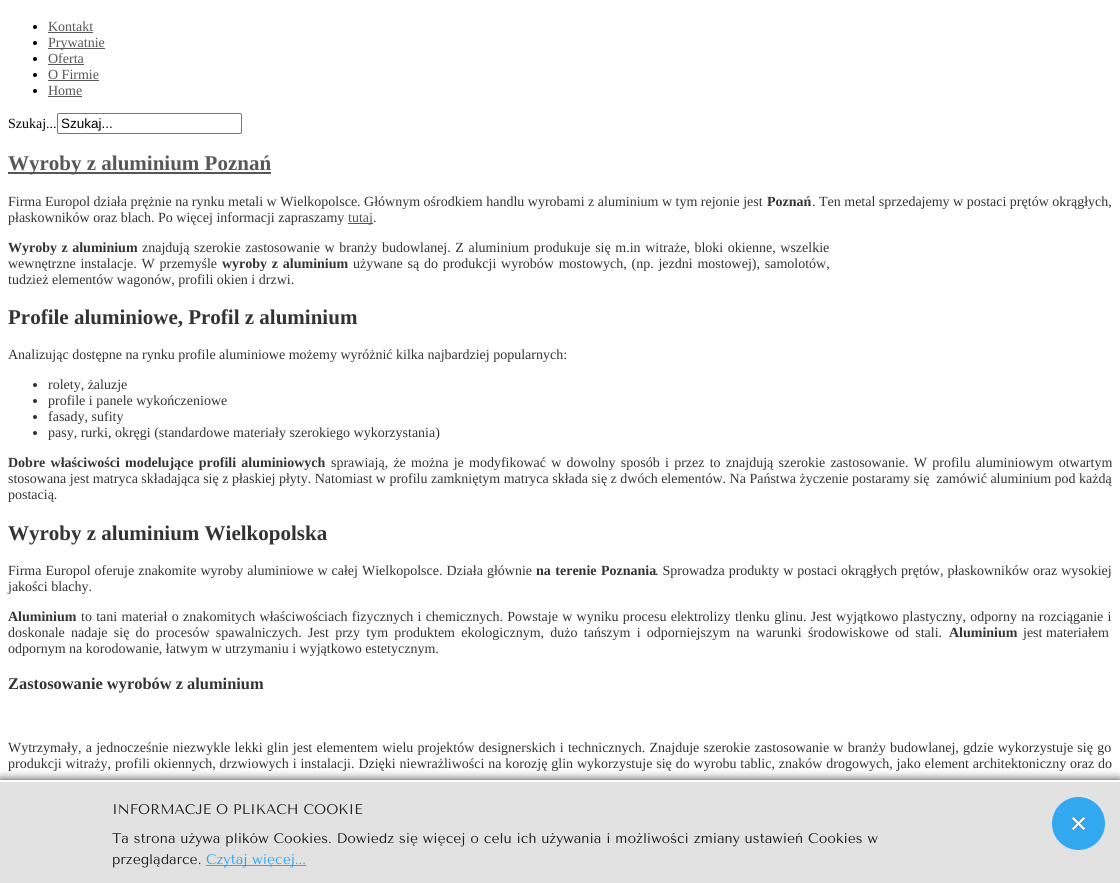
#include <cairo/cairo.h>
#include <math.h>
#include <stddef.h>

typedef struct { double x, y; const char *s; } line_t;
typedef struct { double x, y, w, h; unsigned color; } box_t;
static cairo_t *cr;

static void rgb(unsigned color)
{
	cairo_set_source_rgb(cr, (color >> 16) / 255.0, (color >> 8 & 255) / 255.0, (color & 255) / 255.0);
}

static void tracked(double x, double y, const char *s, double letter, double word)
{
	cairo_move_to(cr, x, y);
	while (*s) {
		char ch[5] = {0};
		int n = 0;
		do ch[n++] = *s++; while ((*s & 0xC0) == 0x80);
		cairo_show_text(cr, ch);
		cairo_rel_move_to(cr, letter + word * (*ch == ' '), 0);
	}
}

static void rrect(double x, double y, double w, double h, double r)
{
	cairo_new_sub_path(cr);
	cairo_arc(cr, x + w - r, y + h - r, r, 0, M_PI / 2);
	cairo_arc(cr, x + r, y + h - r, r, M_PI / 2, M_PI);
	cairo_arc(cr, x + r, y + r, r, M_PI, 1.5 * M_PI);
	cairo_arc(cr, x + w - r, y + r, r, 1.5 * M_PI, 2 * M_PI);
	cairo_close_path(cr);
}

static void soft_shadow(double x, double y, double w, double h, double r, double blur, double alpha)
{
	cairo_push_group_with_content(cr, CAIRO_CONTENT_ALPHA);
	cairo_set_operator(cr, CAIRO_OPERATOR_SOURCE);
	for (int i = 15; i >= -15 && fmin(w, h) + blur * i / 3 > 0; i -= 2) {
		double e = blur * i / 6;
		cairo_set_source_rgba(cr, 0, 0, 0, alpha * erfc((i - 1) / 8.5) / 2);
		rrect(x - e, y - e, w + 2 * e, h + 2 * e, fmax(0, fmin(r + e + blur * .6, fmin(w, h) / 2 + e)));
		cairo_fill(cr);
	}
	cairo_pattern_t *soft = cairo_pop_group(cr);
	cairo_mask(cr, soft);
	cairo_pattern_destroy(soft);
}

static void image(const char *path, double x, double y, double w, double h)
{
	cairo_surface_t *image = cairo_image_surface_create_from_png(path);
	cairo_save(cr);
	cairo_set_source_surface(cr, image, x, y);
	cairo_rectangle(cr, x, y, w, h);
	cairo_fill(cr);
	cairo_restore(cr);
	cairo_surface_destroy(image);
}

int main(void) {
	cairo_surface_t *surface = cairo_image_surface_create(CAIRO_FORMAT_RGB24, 1120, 883);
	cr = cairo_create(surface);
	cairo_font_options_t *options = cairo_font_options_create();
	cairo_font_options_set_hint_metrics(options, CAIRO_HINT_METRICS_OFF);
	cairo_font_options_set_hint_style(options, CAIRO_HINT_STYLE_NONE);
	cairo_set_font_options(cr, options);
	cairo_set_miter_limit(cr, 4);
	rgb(0xffffff);
	cairo_paint(cr);
	rgb(0x000000);
	cairo_arc(cr, 35, 27, 2, 0, 2 * M_PI);
	cairo_fill(cr);
	rgb(0x575757);
	cairo_rectangle(cr, 48, 32, 45, 1);
	cairo_fill(cr);
	rgb(0x000000);
	cairo_arc(cr, 35, 43, 2, 0, 2 * M_PI);
	cairo_fill(cr);
	rgb(0x575757);
	cairo_rectangle(cr, 48, 48, 57, 1);
	cairo_fill(cr);
	rgb(0x000000);
	cairo_arc(cr, 35, 59, 2, 0, 2 * M_PI);
	cairo_fill(cr);
	rgb(0x575757);
	cairo_rectangle(cr, 48, 64, 36, 1);
	cairo_fill(cr);
	rgb(0x000000);
	cairo_arc(cr, 35, 75, 2, 0, 2 * M_PI);
	cairo_fill(cr);
	rgb(0x575757);
	cairo_rectangle(cr, 48, 80, 51, 1);
	cairo_fill(cr);
	rgb(0x000000);
	cairo_arc(cr, 35, 91, 2, 0, 2 * M_PI);
	cairo_fill(cr);
	rgb(0x575757);
	cairo_rectangle(cr, 48, 96, 34, 1);
	cairo_fill(cr);
	rrect(57.5, 113.5, 184, 20, 1.5);
	rgb(0x767676);
	cairo_set_line_width(cr, 1);
	cairo_stroke(cr);
	rgb(0x575757);
	cairo_rectangle(cr, 8, 172, 263, 2);
	cairo_fill(cr);
	cairo_rectangle(cr, 348, 223, 25, 1);
	cairo_fill(cr);
	rgb(0x333333);
	cairo_arc(cr, 35, 385, 2, 0, 2 * M_PI);
	cairo_fill(cr);
	cairo_arc(cr, 35, 401, 2, 0, 2 * M_PI);
	cairo_fill(cr);
	cairo_arc(cr, 35, 417, 2, 0, 2 * M_PI);
	cairo_fill(cr);
	cairo_arc(cr, 35, 433, 2, 0, 2 * M_PI);
	cairo_fill(cr);
	rgb(0x000000);
	soft_shadow(0, 780, 1120, 103, 0, 5, 0.8);
	{
		static const box_t items[] = {
			{0, 782, 1120, 101, 0xe2e2e2},
			{0, 780, 1120, 2, 0xffffff},
			{206, 865, 100, 1, 0x31a8f0},
		};
		for (size_t i = 0; i < sizeof items / sizeof *items; i++) {
			rgb(items[i].color);
			cairo_rectangle(cr, items[i].x, items[i].y, items[i].w, items[i].h);
			cairo_fill(cr);
		}
	}
	cairo_arc(cr, 1078.5, 823.5, 26.5, 0, 2 * M_PI);
	cairo_fill(cr);
	image("img/1.png", 1072, 817, 13, 13);
	cairo_select_font_face(cr, "Liberation Serif", CAIRO_FONT_SLANT_NORMAL, CAIRO_FONT_WEIGHT_NORMAL);
	cairo_set_font_size(cr, 14);
	rgb(0x575757);
	{
		static const line_t items[] = {
			{48, 31, "Kontakt"},
			{48, 47, "Prywatnie"},
			{48, 63, "Oferta"},
			{48, 79, "O Firmie"},
			{48, 95, "Home"},
		};
		for (size_t i = 0; i < sizeof items / sizeof *items; i++) {
			cairo_move_to(cr, items[i].x, items[i].y);
			cairo_show_text(cr, items[i].s);
		}
	}
	rgb(0x000000);
	cairo_move_to(cr, 8, 128);
	cairo_show_text(cr, "Szukaj...");
	cairo_select_font_face(cr, "Liberation Sans", CAIRO_FONT_SLANT_NORMAL, CAIRO_FONT_WEIGHT_NORMAL);
	cairo_set_font_size(cr, 13.5);
	cairo_move_to(cr, 61, 128);
	cairo_show_text(cr, "Szukaj...");
	cairo_select_font_face(cr, "Liberation Serif", CAIRO_FONT_SLANT_NORMAL, CAIRO_FONT_WEIGHT_BOLD);
	cairo_set_font_size(cr, 21);
	rgb(0x575757);
	cairo_move_to(cr, 8, 170);
	cairo_show_text(cr, "Wyroby z aluminium Poznań");
	cairo_select_font_face(cr, "Liberation Serif", CAIRO_FONT_SLANT_NORMAL, CAIRO_FONT_WEIGHT_NORMAL);
	cairo_set_font_size(cr, 14);
	rgb(0x333333);
	cairo_move_to(cr, 8, 206);
	cairo_show_text(cr, "Firma Europol działa prężnie na rynku metali w Wielkopolsce. Głównym ośrodkiem handlu wyrobami z aluminium w tym rejonie jest");
	cairo_select_font_face(cr, "Liberation Serif", CAIRO_FONT_SLANT_NORMAL, CAIRO_FONT_WEIGHT_BOLD);
	cairo_move_to(cr, 767, 206);
	cairo_show_text(cr, "Poznań");
	cairo_select_font_face(cr, "Liberation Serif", CAIRO_FONT_SLANT_NORMAL, CAIRO_FONT_WEIGHT_NORMAL);
	cairo_move_to(cr, 812, 206);
	cairo_show_text(cr, ". Ten metal sprzedajemy w postaci prętów okrągłych,");
	cairo_move_to(cr, 8, 222);
	cairo_show_text(cr, "płaskowników oraz blach. Po więcej informacji zapraszamy");
	rgb(0x575757);
	cairo_move_to(cr, 348, 222);
	cairo_show_text(cr, "tutaj");
	rgb(0x333333);
	cairo_move_to(cr, 373, 222);
	cairo_show_text(cr, ".");
	cairo_select_font_face(cr, "Liberation Serif", CAIRO_FONT_SLANT_NORMAL, CAIRO_FONT_WEIGHT_BOLD);
	tracked(8, 252, "Wyroby z aluminium", 0, 1);
	cairo_select_font_face(cr, "Liberation Serif", CAIRO_FONT_SLANT_NORMAL, CAIRO_FONT_WEIGHT_NORMAL);
	tracked(142, 252, "znajdują szerokie zastosowanie w branży budowlanej. Z aluminium produkuje się m.in witraże, bloki okienne, wszelkie", 0, 1.1);
	tracked(8, 268, "wewnętrzne instalacje. W przemyśle", 0, 1.25);
	cairo_select_font_face(cr, "Liberation Serif", CAIRO_FONT_SLANT_NORMAL, CAIRO_FONT_WEIGHT_BOLD);
	tracked(222, 268, "wyroby z aluminium", 0, 1.25);
	cairo_select_font_face(cr, "Liberation Serif", CAIRO_FONT_SLANT_NORMAL, CAIRO_FONT_WEIGHT_NORMAL);
	tracked(353, 268, "używane są do produkcji wyrobów mostowych, (np. jezdni mostowej), samolotów,", 0, 1.25);
	cairo_move_to(cr, 8, 284);
	cairo_show_text(cr, "tudzież elementów wagonów, profili okien i drzwi.");
	cairo_select_font_face(cr, "Liberation Serif", CAIRO_FONT_SLANT_NORMAL, CAIRO_FONT_WEIGHT_BOLD);
	cairo_set_font_size(cr, 21);
	cairo_move_to(cr, 8, 324);
	cairo_show_text(cr, "Profile aluminiowe, Profil z aluminium");
	cairo_select_font_face(cr, "Liberation Serif", CAIRO_FONT_SLANT_NORMAL, CAIRO_FONT_WEIGHT_NORMAL);
	cairo_set_font_size(cr, 14);
	{
		static const line_t items[] = {
			{8, 359, "Analizując dostępne na rynku profile aluminiowe możemy wyróżnić kilka najbardziej popularnych:"},
			{48, 389, "rolety, żaluzje"},
			{48, 405, "profile i panele wykończeniowe"},
			{48, 421, "fasady, sufity"},
			{48, 437, "pasy, rurki, okręgi (standardowe materiały szerokiego wykorzystania)"},
		};
		for (size_t i = 0; i < sizeof items / sizeof *items; i++) {
			cairo_move_to(cr, items[i].x, items[i].y);
			cairo_show_text(cr, items[i].s);
		}
	}
	cairo_select_font_face(cr, "Liberation Serif", CAIRO_FONT_SLANT_NORMAL, CAIRO_FONT_WEIGHT_BOLD);
	tracked(8, 467, "Dobre właściwości modelujące profili aluminiowych", 0, 1.75);
	cairo_select_font_face(cr, "Liberation Serif", CAIRO_FONT_SLANT_NORMAL, CAIRO_FONT_WEIGHT_NORMAL);
	tracked(331, 467, "sprawiają, że można je modyfikować w dowolny sposób i przez to znajdują szerokie zastosowanie. W profilu aluminiowym otwartym", 0, 1.75);
	cairo_move_to(cr, 8, 483);
	cairo_show_text(cr, "stosowana jest matryca składająca się z płaskiej płyty. Natomiast w profilu zamkniętym matryca składa się z dwóch elementów. Na Państwa życzenie postaramy się  zamówić aluminium pod każdą");
	cairo_move_to(cr, 8, 499);
	cairo_show_text(cr, "postacią.");
	cairo_select_font_face(cr, "Liberation Serif", CAIRO_FONT_SLANT_NORMAL, CAIRO_FONT_WEIGHT_BOLD);
	cairo_set_font_size(cr, 21);
	cairo_move_to(cr, 8, 540);
	cairo_show_text(cr, "Wyroby z aluminium Wielkopolska");
	cairo_select_font_face(cr, "Liberation Serif", CAIRO_FONT_SLANT_NORMAL, CAIRO_FONT_WEIGHT_NORMAL);
	cairo_set_font_size(cr, 14);
	tracked(8, 575, "Firma Europol oferuje znakomite wyroby aluminiowe w całej Wielkopolsce. Działa głównie", 0, 0.5);
	cairo_select_font_face(cr, "Liberation Serif", CAIRO_FONT_SLANT_NORMAL, CAIRO_FONT_WEIGHT_BOLD);
	tracked(536, 575, "na terenie Poznania", 0, 1);
	cairo_select_font_face(cr, "Liberation Serif", CAIRO_FONT_SLANT_NORMAL, CAIRO_FONT_WEIGHT_NORMAL);
	tracked(655, 575, ". Sprowadza produkty w postaci okrągłych prętów, płaskowników oraz wysokiej", 0, 0.5);
	cairo_move_to(cr, 8, 591);
	cairo_show_text(cr, "jakości blachy.");
	cairo_select_font_face(cr, "Liberation Serif", CAIRO_FONT_SLANT_NORMAL, CAIRO_FONT_WEIGHT_BOLD);
	cairo_move_to(cr, 8, 621);
	cairo_show_text(cr, "Aluminium");
	cairo_select_font_face(cr, "Liberation Serif", CAIRO_FONT_SLANT_NORMAL, CAIRO_FONT_WEIGHT_NORMAL);
	tracked(81, 621, "to tani materiał o znakomitych właściwościach fizycznych i chemicznych. Powstaje w wyniku procesu elektrolizy tlenku glinu. Jest wyjątkowo plastyczny, odporny na rozciąganie i", 0, 0.8);
	tracked(8, 637, "doskonale nadaje się do procesów spawalniczych. Jest przy tym produktem ekologicznym, dużo tańszym i odporniejszym na warunki środowiskowe od stali.", 0, 2.75);
	cairo_select_font_face(cr, "Liberation Serif", CAIRO_FONT_SLANT_NORMAL, CAIRO_FONT_WEIGHT_BOLD);
	cairo_move_to(cr, 949, 637);
	cairo_show_text(cr, "Aluminium");
	cairo_select_font_face(cr, "Liberation Serif", CAIRO_FONT_SLANT_NORMAL, CAIRO_FONT_WEIGHT_NORMAL);
	cairo_move_to(cr, 1023, 637);
	cairo_show_text(cr, "jest materiałem");
	cairo_move_to(cr, 8, 653);
	cairo_show_text(cr, "odpornym na korodowanie, łatwym w utrzymaniu i wyjątkowo estetycznym.");
	cairo_select_font_face(cr, "Liberation Serif", CAIRO_FONT_SLANT_NORMAL, CAIRO_FONT_WEIGHT_BOLD);
	cairo_set_font_size(cr, 16.4);
	cairo_move_to(cr, 8, 689);
	cairo_show_text(cr, "Zastosowanie wyrobów z aluminium");
	cairo_select_font_face(cr, "Liberation Serif", CAIRO_FONT_SLANT_NORMAL, CAIRO_FONT_WEIGHT_NORMAL);
	cairo_set_font_size(cr, 14);
	tracked(8, 752, "Wytrzymały, a jednocześnie niezwykle lekki glin jest elementem wielu projektów designerskich i technicznych. Znajduje szerokie zastosowanie w branży budowlanej, gdzie wykorzystuje się go", 0, 0.75);
	tracked(8, 768, "produkcji witraży, profili okiennych, drzwiowych i instalacji. Dzięki niewrażliwości na korozję glin wykorzystuje się do wyrobu tablic, znaków drogowych, jako element architektoniczny oraz do", 0, 0.4);
	cairo_select_font_face(cr, "Tenor Sans", CAIRO_FONT_SLANT_NORMAL, CAIRO_FONT_WEIGHT_NORMAL);
	rgb(0x212121);
	{
		static const line_t items[] = {
			{112, 814, "INFORMACJE O PLIKACH COOKIE"},
			{112, 843, "Ta strona używa plików Cookies. Dowiedz się więcej o celu ich używania i możliwości zmiany ustawień Cookies w"},
			{112, 864, "przeglądarce."},
		};
		for (size_t i = 0; i < sizeof items / sizeof *items; i++) {
			cairo_move_to(cr, items[i].x, items[i].y);
			cairo_show_text(cr, items[i].s);
		}
	}
	rgb(0x31a8f0);
	cairo_move_to(cr, 206, 864);
	cairo_show_text(cr, "Czytaj więcej...");
	cairo_surface_write_to_png(surface, "page.png");
	cairo_font_options_destroy(options);
	cairo_destroy(cr);
	cairo_surface_destroy(surface);
	return 0;
}
